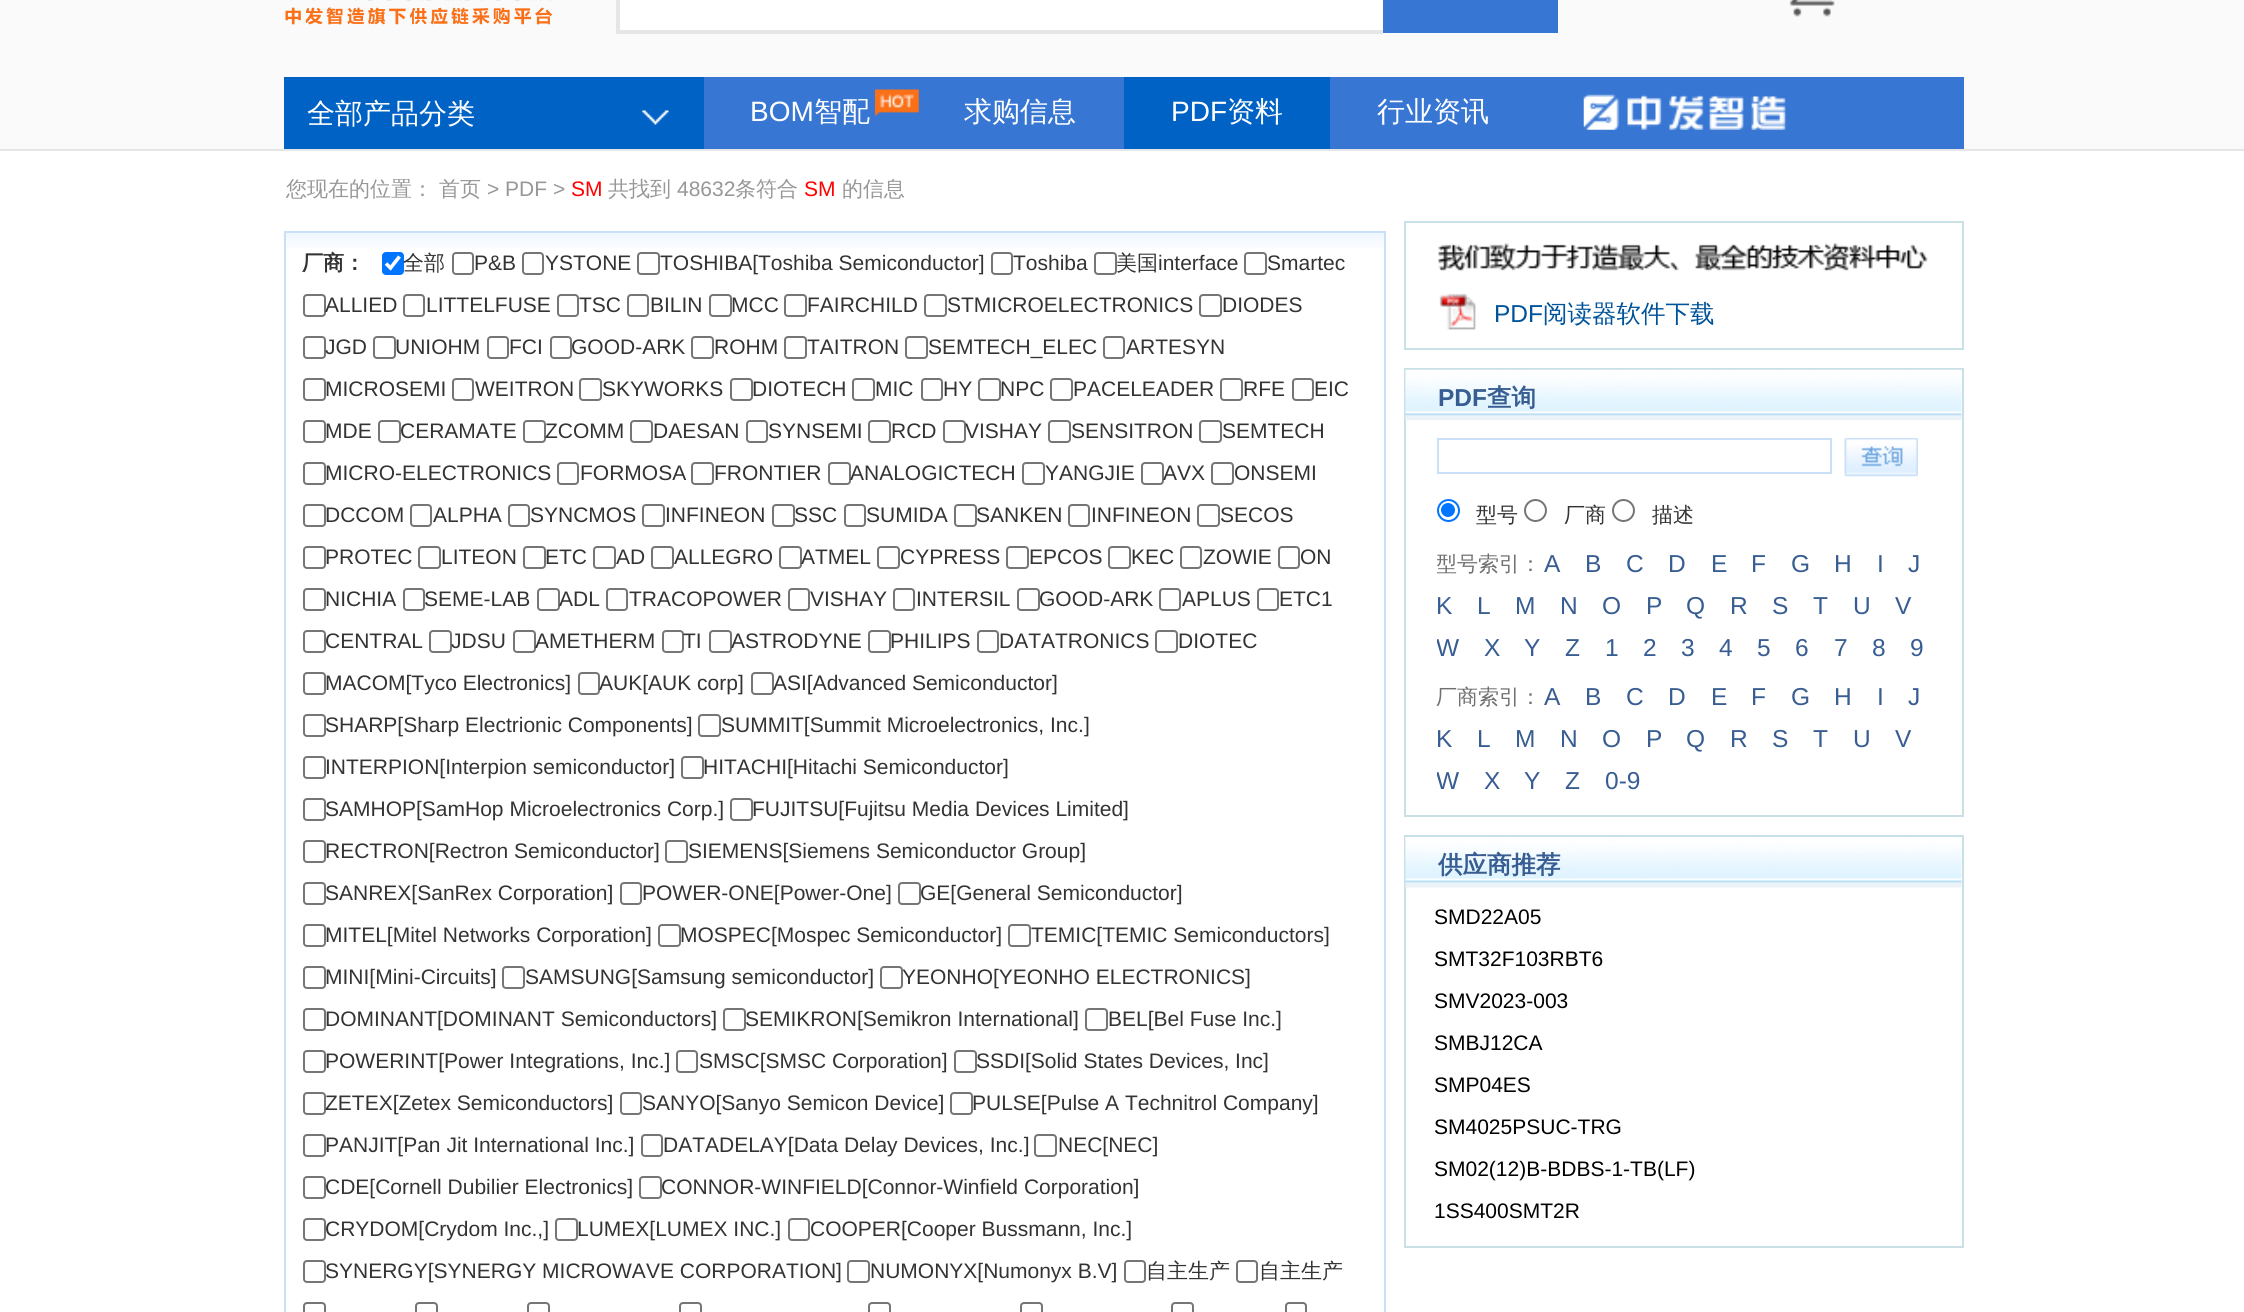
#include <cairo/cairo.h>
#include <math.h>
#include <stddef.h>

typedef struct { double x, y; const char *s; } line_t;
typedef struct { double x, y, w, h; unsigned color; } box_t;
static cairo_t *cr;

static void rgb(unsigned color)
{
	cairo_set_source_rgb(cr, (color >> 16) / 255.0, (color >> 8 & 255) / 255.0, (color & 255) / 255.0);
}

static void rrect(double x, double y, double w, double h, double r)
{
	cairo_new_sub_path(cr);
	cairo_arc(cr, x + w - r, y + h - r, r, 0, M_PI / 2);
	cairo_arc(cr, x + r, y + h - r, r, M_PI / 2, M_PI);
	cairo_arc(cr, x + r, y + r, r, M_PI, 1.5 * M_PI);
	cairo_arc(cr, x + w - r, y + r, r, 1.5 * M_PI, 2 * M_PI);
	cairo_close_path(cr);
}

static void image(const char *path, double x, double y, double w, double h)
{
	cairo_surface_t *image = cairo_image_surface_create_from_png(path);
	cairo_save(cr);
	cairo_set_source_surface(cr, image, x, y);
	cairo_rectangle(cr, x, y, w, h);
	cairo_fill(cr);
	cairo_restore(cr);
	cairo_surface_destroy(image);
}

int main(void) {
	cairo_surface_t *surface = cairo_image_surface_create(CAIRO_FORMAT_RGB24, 2244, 1312);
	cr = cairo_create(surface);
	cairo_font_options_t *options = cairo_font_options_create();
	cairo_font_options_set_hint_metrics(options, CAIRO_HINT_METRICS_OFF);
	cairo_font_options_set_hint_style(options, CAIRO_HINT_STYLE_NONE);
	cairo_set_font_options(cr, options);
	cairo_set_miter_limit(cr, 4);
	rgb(0xffffff);
	cairo_paint(cr);
	rgb(0xfafafa);
	cairo_rectangle(cr, 0, 0, 2244, 77);
	cairo_fill(cr);
	image("img/1.png", 285, 0, 268, 25);
	{
		static const box_t items[] = {
			{616, 30, 767, 4, 0xe6e6e6},
			{616, 0, 4, 33, 0xe6e6e6},
			{620, 0, 763, 30, 0xffffff},
			{1383, 0, 175, 33, 0x3776d3},
		};
		for (size_t i = 0; i < sizeof items / sizeof *items; i++) {
			rgb(items[i].color);
			cairo_rectangle(cr, items[i].x, items[i].y, items[i].w, items[i].h);
			cairo_fill(cr);
		}
	}
	image("img/2.png", 1789, 0, 46, 17);
	{
		static const box_t items[] = {
			{0, 77, 2244, 72, 0xfafafa},
			{0, 149, 2244, 2, 0xe6e6e6},
			{284, 77, 420, 72, 0x0062c4},
		};
		for (size_t i = 0; i < sizeof items / sizeof *items; i++) {
			rgb(items[i].color);
			cairo_rectangle(cr, items[i].x, items[i].y, items[i].w, items[i].h);
			cairo_fill(cr);
		}
	}
	image("img/3.png", 641, 110, 28, 15);
	rgb(0x3776d3);
	cairo_rectangle(cr, 704, 77, 1260, 72);
	cairo_fill(cr);
	image("img/4.png", 875, 89, 44, 27);
	rgb(0x0062c4);
	cairo_rectangle(cr, 1124, 77, 206, 72);
	cairo_fill(cr);
	image("img/5.png", 1583, 94, 203, 36);
	image("img/6.png", 283, 233, 1101, 15);
	cairo_rectangle(cr, 285, 232, 1100, 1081);
	rgb(0xcae0f7);
	cairo_stroke(cr);
	rgb(0x0075ff);
	rrect(382, 252, 22, 23, 4);
	cairo_fill(cr);
	cairo_new_path(cr);
	cairo_move_to(cr, 386, 263.5);
	cairo_line_to(cr, 390.5, 268);
	cairo_line_to(cr, 399.5, 256.5);
	rgb(0xffffff);
	cairo_set_line_width(cr, 3.6);
	cairo_stroke(cr);
	rrect(453, 253, 20, 21, 3);
	rgb(0x767676);
	cairo_set_line_width(cr, 2);
	cairo_stroke(cr);
	rrect(523, 253, 20, 21, 3);
	cairo_stroke(cr);
	rrect(638, 253, 21, 21, 3);
	cairo_stroke(cr);
	rrect(992, 253, 20, 21, 3);
	cairo_stroke(cr);
	rrect(1095, 253, 21, 21, 3);
	cairo_stroke(cr);
	rrect(1245, 253, 21, 21, 3);
	cairo_stroke(cr);
	rrect(304, 295, 21, 21, 3);
	cairo_stroke(cr);
	rrect(404, 295, 20, 21, 3);
	cairo_stroke(cr);
	rrect(558, 295, 20, 21, 3);
	cairo_stroke(cr);
	rrect(628, 295, 20, 21, 3);
	cairo_stroke(cr);
	rrect(710, 295, 21, 21, 3);
	cairo_stroke(cr);
	rrect(785, 295, 21, 21, 3);
	cairo_stroke(cr);
	rrect(925, 295, 21, 21, 3);
	cairo_stroke(cr);
	rrect(1200, 295, 21, 21, 3);
	cairo_stroke(cr);
	rrect(304, 337, 21, 21, 3);
	cairo_stroke(cr);
	rrect(374, 337, 21, 21, 3);
	cairo_stroke(cr);
	rrect(488, 337, 20, 21, 3);
	cairo_stroke(cr);
	rrect(551, 337, 20, 21, 3);
	cairo_stroke(cr);
	rrect(692, 337, 21, 21, 3);
	cairo_stroke(cr);
	rrect(785, 337, 21, 21, 3);
	cairo_stroke(cr);
	rrect(906, 337, 21, 21, 3);
	cairo_stroke(cr);
	rrect(1104, 337, 20, 21, 3);
	cairo_stroke(cr);
	rrect(304, 379, 21, 21, 3);
	cairo_stroke(cr);
	rrect(453, 379, 20, 21, 3);
	cairo_stroke(cr);
	rrect(580, 379, 21, 21, 3);
	cairo_stroke(cr);
	rrect(731, 379, 21, 21, 3);
	cairo_stroke(cr);
	rrect(853, 379, 21, 21, 3);
	cairo_stroke(cr);
	rrect(922, 379, 20, 21, 3);
	cairo_stroke(cr);
	rrect(979, 379, 21, 21, 3);
	cairo_stroke(cr);
	rrect(1051, 379, 21, 21, 3);
	cairo_stroke(cr);
	rrect(1221, 379, 21, 21, 3);
	cairo_stroke(cr);
	rrect(1293, 379, 20, 21, 3);
	cairo_stroke(cr);
	rrect(304, 421, 21, 21, 3);
	cairo_stroke(cr);
	rrect(379, 421, 21, 21, 3);
	cairo_stroke(cr);
	rrect(524, 421, 21, 21, 3);
	cairo_stroke(cr);
	rrect(631, 421, 21, 21, 3);
	cairo_stroke(cr);
	rrect(747, 421, 20, 21, 3);
	cairo_stroke(cr);
	rrect(869, 421, 21, 21, 3);
	cairo_stroke(cr);
	rrect(944, 421, 21, 21, 3);
	cairo_stroke(cr);
	rrect(1049, 421, 21, 21, 3);
	cairo_stroke(cr);
	rrect(1200, 421, 21, 21, 3);
	cairo_stroke(cr);
	rrect(304, 463, 21, 21, 3);
	cairo_stroke(cr);
	rrect(558, 463, 20, 21, 3);
	cairo_stroke(cr);
	rrect(692, 463, 21, 21, 3);
	cairo_stroke(cr);
	rrect(829, 463, 21, 21, 3);
	cairo_stroke(cr);
	rrect(1023, 463, 21, 21, 3);
	cairo_stroke(cr);
	rrect(1142, 463, 21, 21, 3);
	cairo_stroke(cr);
	rrect(1212, 463, 21, 21, 3);
	cairo_stroke(cr);
	rrect(304, 505, 21, 21, 3);
	cairo_stroke(cr);
	rrect(411, 505, 20, 21, 3);
	cairo_stroke(cr);
	rrect(509, 505, 20, 21, 3);
	cairo_stroke(cr);
	rrect(643, 505, 21, 21, 3);
	cairo_stroke(cr);
	rrect(773, 505, 21, 21, 3);
	cairo_stroke(cr);
	rrect(845, 505, 20, 21, 3);
	cairo_stroke(cr);
	rrect(955, 505, 21, 21, 3);
	cairo_stroke(cr);
	rrect(1069, 505, 20, 21, 3);
	cairo_stroke(cr);
	rrect(1198, 505, 21, 21, 3);
	cairo_stroke(cr);
	rrect(304, 547, 21, 21, 3);
	cairo_stroke(cr);
	rrect(419, 547, 21, 21, 3);
	cairo_stroke(cr);
	rrect(524, 547, 21, 21, 3);
	cairo_stroke(cr);
	rrect(594, 547, 21, 21, 3);
	cairo_stroke(cr);
	rrect(652, 547, 21, 21, 3);
	cairo_stroke(cr);
	rrect(780, 547, 21, 21, 3);
	cairo_stroke(cr);
	rrect(878, 547, 21, 21, 3);
	cairo_stroke(cr);
	rrect(1007, 547, 21, 21, 3);
	cairo_stroke(cr);
	rrect(1109, 547, 21, 21, 3);
	cairo_stroke(cr);
	rrect(1181, 547, 20, 21, 3);
	cairo_stroke(cr);
	rrect(1279, 547, 20, 21, 3);
	cairo_stroke(cr);
	rrect(304, 589, 21, 21, 3);
	cairo_stroke(cr);
	rrect(404, 589, 20, 21, 3);
	cairo_stroke(cr);
	rrect(538, 589, 21, 21, 3);
	cairo_stroke(cr);
	rrect(607, 589, 20, 21, 3);
	cairo_stroke(cr);
	rrect(789, 589, 20, 21, 3);
	cairo_stroke(cr);
	rrect(894, 589, 20, 21, 3);
	cairo_stroke(cr);
	rrect(1018, 589, 21, 21, 3);
	cairo_stroke(cr);
	rrect(1160, 589, 20, 21, 3);
	cairo_stroke(cr);
	rrect(1258, 589, 20, 21, 3);
	cairo_stroke(cr);
	rrect(304, 631, 21, 21, 3);
	cairo_stroke(cr);
	rrect(430, 631, 21, 21, 3);
	cairo_stroke(cr);
	rrect(514, 631, 21, 21, 3);
	cairo_stroke(cr);
	rrect(663, 631, 20, 21, 3);
	cairo_stroke(cr);
	rrect(710, 631, 21, 21, 3);
	cairo_stroke(cr);
	rrect(869, 631, 21, 21, 3);
	cairo_stroke(cr);
	rrect(978, 631, 20, 21, 3);
	cairo_stroke(cr);
	rrect(1156, 631, 21, 21, 3);
	cairo_stroke(cr);
	rrect(304, 673, 21, 21, 3);
	cairo_stroke(cr);
	rrect(579, 673, 20, 21, 3);
	cairo_stroke(cr);
	rrect(752, 673, 21, 21, 3);
	cairo_stroke(cr);
	rrect(304, 715, 21, 21, 3);
	cairo_stroke(cr);
	rrect(699, 715, 21, 21, 3);
	cairo_stroke(cr);
	rrect(304, 757, 21, 21, 3);
	cairo_stroke(cr);
	rrect(682, 757, 21, 21, 3);
	cairo_stroke(cr);
	rrect(304, 799, 21, 21, 3);
	cairo_stroke(cr);
	rrect(731, 799, 21, 21, 3);
	cairo_stroke(cr);
	rrect(304, 841, 21, 21, 3);
	cairo_stroke(cr);
	rrect(666, 841, 21, 21, 3);
	cairo_stroke(cr);
	rrect(304, 883, 21, 21, 3);
	cairo_stroke(cr);
	rrect(621, 883, 20, 21, 3);
	cairo_stroke(cr);
	rrect(899, 883, 21, 21, 3);
	cairo_stroke(cr);
	rrect(304, 925, 21, 21, 3);
	cairo_stroke(cr);
	rrect(659, 925, 21, 21, 3);
	cairo_stroke(cr);
	rrect(1009, 925, 21, 21, 3);
	cairo_stroke(cr);
	rrect(304, 967, 21, 21, 3);
	cairo_stroke(cr);
	rrect(503, 967, 21, 21, 3);
	cairo_stroke(cr);
	rrect(881, 967, 21, 21, 3);
	cairo_stroke(cr);
	rrect(304, 1009, 21, 21, 3);
	cairo_stroke(cr);
	rrect(724, 1009, 21, 21, 3);
	cairo_stroke(cr);
	rrect(1086, 1009, 21, 21, 3);
	cairo_stroke(cr);
	rrect(304, 1051, 21, 21, 3);
	cairo_stroke(cr);
	rrect(677, 1051, 20, 21, 3);
	cairo_stroke(cr);
	rrect(955, 1051, 21, 21, 3);
	cairo_stroke(cr);
	rrect(304, 1093, 21, 21, 3);
	cairo_stroke(cr);
	rrect(621, 1093, 20, 21, 3);
	cairo_stroke(cr);
	rrect(951, 1093, 21, 21, 3);
	cairo_stroke(cr);
	rrect(304, 1135, 21, 21, 3);
	cairo_stroke(cr);
	rrect(642, 1135, 20, 21, 3);
	cairo_stroke(cr);
	rrect(1035, 1135, 21, 21, 3);
	cairo_stroke(cr);
	rrect(304, 1177, 21, 21, 3);
	cairo_stroke(cr);
	rrect(640, 1177, 21, 21, 3);
	cairo_stroke(cr);
	rrect(304, 1219, 21, 21, 3);
	cairo_stroke(cr);
	rrect(556, 1219, 21, 21, 3);
	cairo_stroke(cr);
	rrect(789, 1219, 20, 21, 3);
	cairo_stroke(cr);
	rrect(304, 1261, 21, 21, 3);
	cairo_stroke(cr);
	rrect(848, 1261, 21, 21, 3);
	cairo_stroke(cr);
	rrect(1125, 1261, 20, 21, 3);
	cairo_stroke(cr);
	rrect(1237, 1261, 20, 21, 3);
	cairo_stroke(cr);
	rrect(304, 1303, 21, 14, 3);
	cairo_stroke(cr);
	rrect(416, 1303, 21, 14, 3);
	cairo_stroke(cr);
	rrect(528, 1303, 21, 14, 3);
	cairo_stroke(cr);
	rrect(680, 1303, 21, 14, 3);
	cairo_stroke(cr);
	rrect(869, 1303, 21, 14, 3);
	cairo_stroke(cr);
	rrect(1021, 1303, 21, 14, 3);
	cairo_stroke(cr);
	rrect(1172, 1303, 21, 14, 3);
	cairo_stroke(cr);
	rrect(1286, 1303, 20, 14, 3);
	cairo_stroke(cr);
	cairo_rectangle(cr, 1405, 222, 558, 127);
	rgb(0xcae0e7);
	cairo_stroke(cr);
	image("img/7.png", 1438, 243, 490, 29);
	image("img/8.png", 1439, 293, 37, 37);
	cairo_rectangle(cr, 1405, 369, 558, 447);
	cairo_stroke(cr);
	image("img/9.png", 1405, 369, 557, 52);
	cairo_rectangle(cr, 1438, 439, 393, 34);
	rgb(0xcae0f7);
	cairo_stroke(cr);
	image("img/10.png", 1844, 438, 74, 39);
	cairo_arc(cr, 1448.5, 510.5, 10.5, 0, 2 * M_PI);
	rgb(0x0075ff);
	cairo_stroke(cr);
	cairo_arc(cr, 1448, 510, 7, 0, 2 * M_PI);
	cairo_fill(cr);
	cairo_arc(cr, 1535.5, 510.5, 10.5, 0, 2 * M_PI);
	rgb(0x767676);
	cairo_stroke(cr);
	cairo_arc(cr, 1623.5, 510.5, 10.5, 0, 2 * M_PI);
	cairo_stroke(cr);
	cairo_rectangle(cr, 1405, 836, 558, 411);
	rgb(0xcae0e7);
	cairo_stroke(cr);
	image("img/11.png", 1405, 837, 557, 51);
	cairo_select_font_face(cr, "WenQuanYi Zen Hei Medium", CAIRO_FONT_SLANT_NORMAL, CAIRO_FONT_WEIGHT_NORMAL);
	cairo_set_font_size(cr, 28);
	rgb(0xffffff);
	cairo_move_to(cr, 307, 123);
	cairo_show_text(cr, "全部产品分类");
	cairo_select_font_face(cr, "Liberation Sans", CAIRO_FONT_SLANT_NORMAL, CAIRO_FONT_WEIGHT_NORMAL);
	cairo_move_to(cr, 750, 121);
	cairo_show_text(cr, "BOM");
	cairo_select_font_face(cr, "WenQuanYi Zen Hei Medium", CAIRO_FONT_SLANT_NORMAL, CAIRO_FONT_WEIGHT_NORMAL);
	cairo_move_to(cr, 814, 121);
	cairo_show_text(cr, "智配");
	cairo_move_to(cr, 964, 121);
	cairo_show_text(cr, "求购信息");
	cairo_select_font_face(cr, "Liberation Sans", CAIRO_FONT_SLANT_NORMAL, CAIRO_FONT_WEIGHT_NORMAL);
	cairo_move_to(cr, 1171, 121);
	cairo_show_text(cr, "PDF");
	cairo_select_font_face(cr, "WenQuanYi Zen Hei Medium", CAIRO_FONT_SLANT_NORMAL, CAIRO_FONT_WEIGHT_NORMAL);
	cairo_move_to(cr, 1227, 121);
	cairo_show_text(cr, "资料");
	cairo_move_to(cr, 1377, 121);
	cairo_show_text(cr, "行业资讯");
	cairo_set_font_size(cr, 21);
	rgb(0x979797);
	cairo_move_to(cr, 286, 196);
	cairo_show_text(cr, "您现在的位置：");
	cairo_move_to(cr, 439, 196);
	cairo_show_text(cr, "首页");
	cairo_select_font_face(cr, "Liberation Sans", CAIRO_FONT_SLANT_NORMAL, CAIRO_FONT_WEIGHT_NORMAL);
	cairo_move_to(cr, 487, 196);
	cairo_show_text(cr, "> PDF >");
	rgb(0xff0000);
	cairo_move_to(cr, 571, 196);
	cairo_show_text(cr, "SM");
	cairo_select_font_face(cr, "WenQuanYi Zen Hei Medium", CAIRO_FONT_SLANT_NORMAL, CAIRO_FONT_WEIGHT_NORMAL);
	rgb(0x979797);
	cairo_move_to(cr, 608, 196);
	cairo_show_text(cr, "共找到");
	cairo_select_font_face(cr, "Liberation Sans", CAIRO_FONT_SLANT_NORMAL, CAIRO_FONT_WEIGHT_NORMAL);
	cairo_move_to(cr, 677, 196);
	cairo_show_text(cr, "48632");
	cairo_select_font_face(cr, "WenQuanYi Zen Hei Medium", CAIRO_FONT_SLANT_NORMAL, CAIRO_FONT_WEIGHT_NORMAL);
	cairo_move_to(cr, 735, 196);
	cairo_show_text(cr, "条符合");
	cairo_select_font_face(cr, "Liberation Sans", CAIRO_FONT_SLANT_NORMAL, CAIRO_FONT_WEIGHT_NORMAL);
	rgb(0xff0000);
	cairo_move_to(cr, 804, 196);
	cairo_show_text(cr, "SM");
	cairo_select_font_face(cr, "WenQuanYi Zen Hei Medium", CAIRO_FONT_SLANT_NORMAL, CAIRO_FONT_WEIGHT_NORMAL);
	rgb(0x979797);
	cairo_move_to(cr, 842, 196);
	cairo_show_text(cr, "的信息");
	cairo_select_font_face(cr, "WenQuanYi Zen Hei", CAIRO_FONT_SLANT_NORMAL, CAIRO_FONT_WEIGHT_BOLD);
	rgb(0x333333);
	cairo_move_to(cr, 302, 270);
	cairo_show_text(cr, "厂商：");
	cairo_select_font_face(cr, "WenQuanYi Zen Hei Medium", CAIRO_FONT_SLANT_NORMAL, CAIRO_FONT_WEIGHT_NORMAL);
	cairo_move_to(cr, 403, 270);
	cairo_show_text(cr, "全部");
	cairo_select_font_face(cr, "Liberation Sans", CAIRO_FONT_SLANT_NORMAL, CAIRO_FONT_WEIGHT_NORMAL);
	{
		static const line_t items[] = {
			{474, 270, "P&B"},
			{545, 270, "YSTONE"},
			{660, 270, "TOSHIBA[Toshiba Semiconductor]"},
			{1013, 270, "Toshiba"},
		};
		for (size_t i = 0; i < sizeof items / sizeof *items; i++) {
			cairo_move_to(cr, items[i].x, items[i].y);
			cairo_show_text(cr, items[i].s);
		}
	}
	cairo_select_font_face(cr, "WenQuanYi Zen Hei Medium", CAIRO_FONT_SLANT_NORMAL, CAIRO_FONT_WEIGHT_NORMAL);
	cairo_move_to(cr, 1116, 270);
	cairo_show_text(cr, "美国");
	cairo_select_font_face(cr, "Liberation Sans", CAIRO_FONT_SLANT_NORMAL, CAIRO_FONT_WEIGHT_NORMAL);
	{
		static const line_t items[] = {
			{1158, 270, "interface"},
			{1267, 270, "Smartec"},
			{325, 312, "ALLIED"},
			{426, 312, "LITTELFUSE"},
			{579, 312, "TSC"},
			{650, 312, "BILIN"},
			{731, 312, "MCC"},
			{807, 312, "FAIRCHILD"},
			{947, 312, "STMICROELECTRONICS"},
			{1222, 312, "DIODES"},
			{325, 354, "JGD"},
			{395, 354, "UNIOHM"},
			{509, 354, "FCI"},
			{571, 354, "GOOD-ARK"},
			{714, 354, "ROHM"},
			{807, 354, "TAITRON"},
			{928, 354, "SEMTECH_ELEC"},
			{1126, 354, "ARTESYN"},
			{325, 396, "MICROSEMI"},
			{475, 396, "WEITRON"},
			{602, 396, "SKYWORKS"},
			{752, 396, "DIOTECH"},
			{875, 396, "MIC"},
			{943, 396, "HY"},
			{1000, 396, "NPC"},
			{1073, 396, "PACELEADER"},
			{1243, 396, "RFE"},
			{1314, 396, "EIC"},
			{325, 438, "MDE"},
			{400, 438, "CERAMATE"},
			{545, 438, "ZCOMM"},
			{653, 438, "DAESAN"},
			{768, 438, "SYNSEMI"},
			{891, 438, "RCD"},
			{965, 438, "VISHAY"},
			{1071, 438, "SENSITRON"},
			{1222, 438, "SEMTECH"},
			{325, 480, "MICRO-ELECTRONICS"},
			{580, 480, "FORMOSA"},
			{714, 480, "FRONTIER"},
			{850, 480, "ANALOGICTECH"},
			{1045, 480, "YANGJIE"},
			{1163, 480, "AVX"},
			{1234, 480, "ONSEMI"},
			{325, 522, "DCCOM"},
			{433, 522, "ALPHA"},
			{530, 522, "SYNCMOS"},
			{665, 522, "INFINEON"},
			{794, 522, "SSC"},
			{866, 522, "SUMIDA"},
			{976, 522, "SANKEN"},
			{1091, 522, "INFINEON"},
			{1220, 522, "SECOS"},
			{325, 564, "PROTEC"},
			{441, 564, "LITEON"},
			{545, 564, "ETC"},
			{616, 564, "AD"},
			{674, 564, "ALLEGRO"},
			{801, 564, "ATMEL"},
			{900, 564, "CYPRESS"},
			{1029, 564, "EPCOS"},
			{1131, 564, "KEC"},
			{1203, 564, "ZOWIE"},
			{1300, 564, "ON"},
			{325, 606, "NICHIA"},
			{424, 606, "SEME-LAB"},
			{559, 606, "ADL"},
			{629, 606, "TRACOPOWER"},
			{810, 606, "VISHAY"},
			{916, 606, "INTERSIL"},
			{1039, 606, "GOOD-ARK"},
			{1182, 606, "APLUS"},
			{1279, 606, "ETC1"},
			{325, 648, "CENTRAL"},
			{451, 648, "JDSU"},
			{535, 648, "AMETHERM"},
			{683, 648, "TI"},
			{731, 648, "ASTRODYNE"},
			{890, 648, "PHILIPS"},
			{999, 648, "DATATRONICS"},
			{1178, 648, "DIOTEC"},
			{325, 690, "MACOM[Tyco Electronics]"},
			{599, 690, "AUK[AUK corp]"},
			{773, 690, "ASI[Advanced Semiconductor]"},
			{325, 732, "SHARP[Sharp Electrionic Components]"},
			{721, 732, "SUMMIT[Summit Microelectronics, Inc.]"},
			{325, 774, "INTERPION[Interpion semiconductor]"},
			{703, 774, "HITACHI[Hitachi Semiconductor]"},
			{325, 816, "SAMHOP[SamHop Microelectronics Corp.]"},
			{752, 816, "FUJITSU[Fujitsu Media Devices Limited]"},
			{325, 858, "RECTRON[Rectron Semiconductor]"},
			{688, 858, "SIEMENS[Siemens Semiconductor Group]"},
			{325, 900, "SANREX[SanRex Corporation]"},
			{642, 900, "POWER-ONE[Power-One]"},
			{920, 900, "GE[General Semiconductor]"},
			{325, 942, "MITEL[Mitel Networks Corporation]"},
			{680, 942, "MOSPEC[Mospec Semiconductor]"},
			{1031, 942, "TEMIC[TEMIC Semiconductors]"},
			{325, 984, "MINI[Mini-Circuits]"},
			{525, 984, "SAMSUNG[Samsung semiconductor]"},
			{902, 984, "YEONHO[YEONHO ELECTRONICS]"},
			{325, 1026, "DOMINANT[DOMINANT Semiconductors]"},
			{745, 1026, "SEMIKRON[Semikron International]"},
			{1108, 1026, "BEL[Bel Fuse Inc.]"},
			{325, 1068, "POWERINT[Power Integrations, Inc.]"},
			{699, 1068, "SMSC[SMSC Corporation]"},
			{976, 1068, "SSDI[Solid States Devices, Inc]"},
			{325, 1110, "ZETEX[Zetex Semiconductors]"},
			{642, 1110, "SANYO[Sanyo Semicon Device]"},
			{972, 1110, "PULSE[Pulse A Technitrol Company]"},
			{325, 1152, "PANJIT[Pan Jit International Inc.]"},
			{663, 1152, "DATADELAY[Data Delay Devices, Inc.]"},
			{1058, 1152, "NEC[NEC]"},
			{325, 1194, "CDE[Cornell Dubilier Electronics]"},
			{661, 1194, "CONNOR-WINFIELD[Connor-Winfield Corporation]"},
			{325, 1236, "CRYDOM[Crydom Inc.,]"},
			{577, 1236, "LUMEX[LUMEX INC.]"},
			{810, 1236, "COOPER[Cooper Bussmann, Inc.]"},
			{325, 1278, "SYNERGY[SYNERGY MICROWAVE CORPORATION]"},
			{870, 1278, "NUMONYX[Numonyx B.V]"},
		};
		for (size_t i = 0; i < sizeof items / sizeof *items; i++) {
			cairo_move_to(cr, items[i].x, items[i].y);
			cairo_show_text(cr, items[i].s);
		}
	}
	cairo_select_font_face(cr, "WenQuanYi Zen Hei Medium", CAIRO_FONT_SLANT_NORMAL, CAIRO_FONT_WEIGHT_NORMAL);
	cairo_move_to(cr, 1146, 1278);
	cairo_show_text(cr, "自主生产");
	cairo_move_to(cr, 1259, 1278);
	cairo_show_text(cr, "自主生产");
	cairo_select_font_face(cr, "Liberation Sans", CAIRO_FONT_SLANT_NORMAL, CAIRO_FONT_WEIGHT_NORMAL);
	cairo_set_font_size(cr, 24.5);
	rgb(0x00539a);
	cairo_move_to(cr, 1494, 322);
	cairo_show_text(cr, "PDF");
	cairo_select_font_face(cr, "WenQuanYi Zen Hei Medium", CAIRO_FONT_SLANT_NORMAL, CAIRO_FONT_WEIGHT_NORMAL);
	cairo_move_to(cr, 1543, 322);
	cairo_show_text(cr, "阅读器软件下载");
	cairo_select_font_face(cr, "Liberation Sans", CAIRO_FONT_SLANT_NORMAL, CAIRO_FONT_WEIGHT_BOLD);
	rgb(0x385d92);
	cairo_move_to(cr, 1438, 406);
	cairo_show_text(cr, "PDF");
	cairo_select_font_face(cr, "WenQuanYi Zen Hei", CAIRO_FONT_SLANT_NORMAL, CAIRO_FONT_WEIGHT_BOLD);
	cairo_move_to(cr, 1487, 406);
	cairo_show_text(cr, "查询");
	cairo_select_font_face(cr, "WenQuanYi Zen Hei Medium", CAIRO_FONT_SLANT_NORMAL, CAIRO_FONT_WEIGHT_NORMAL);
	cairo_set_font_size(cr, 21);
	rgb(0x333333);
	{
		static const line_t items[] = {
			{1476, 522, "型号"},
			{1564, 522, "厂商"},
			{1652, 522, "描述"},
		};
		for (size_t i = 0; i < sizeof items / sizeof *items; i++) {
			cairo_move_to(cr, items[i].x, items[i].y);
			cairo_show_text(cr, items[i].s);
		}
	}
	cairo_save(cr);
	cairo_rectangle(cr, 1437, 543, 105, 42);
	cairo_clip(cr);
	rgb(0x707070);
	cairo_move_to(cr, 1436, 571);
	cairo_show_text(cr, "型号索引：");
	cairo_restore(cr);
	cairo_select_font_face(cr, "Liberation Sans", CAIRO_FONT_SLANT_NORMAL, CAIRO_FONT_WEIGHT_NORMAL);
	cairo_set_font_size(cr, 24.5);
	rgb(0x385d92);
	{
		static const line_t items[] = {
			{1544, 572, "A"},
			{1585, 572, "B"},
			{1626, 572, "C"},
			{1668, 572, "D"},
			{1711, 572, "E"},
			{1751, 572, "F"},
			{1791, 572, "G"},
			{1834, 572, "H"},
			{1877, 572, "I"},
			{1908, 572, "J"},
			{1436, 614, "K"},
			{1477, 614, "L"},
			{1515, 614, "M"},
			{1560, 614, "N"},
			{1602, 614, "O"},
			{1646, 614, "P"},
			{1686, 614, "Q"},
			{1730, 614, "R"},
			{1772, 614, "S"},
			{1813, 614, "T"},
			{1853, 614, "U"},
			{1895, 614, "V"},
		};
		for (size_t i = 0; i < sizeof items / sizeof *items; i++) {
			cairo_move_to(cr, items[i].x, items[i].y);
			cairo_show_text(cr, items[i].s);
		}
	}
	cairo_save(cr);
	cairo_rectangle(cr, 1437, 627, 23, 42);
	cairo_clip(cr);
	cairo_move_to(cr, 1436, 656);
	cairo_show_text(cr, "W");
	cairo_restore(cr);
	{
		static const line_t items[] = {
			{1484, 656, "X"},
			{1524, 656, "Y"},
			{1565, 656, "Z"},
			{1605, 656, "1"},
			{1643, 656, "2"},
			{1681, 656, "3"},
			{1719, 656, "4"},
			{1757, 656, "5"},
			{1795, 656, "6"},
			{1834, 656, "7"},
		};
		for (size_t i = 0; i < sizeof items / sizeof *items; i++) {
			cairo_move_to(cr, items[i].x, items[i].y);
			cairo_show_text(cr, items[i].s);
		}
	}
	cairo_save(cr);
	cairo_rectangle(cr, 1873, 627, 12, 42);
	cairo_clip(cr);
	cairo_move_to(cr, 1872, 656);
	cairo_show_text(cr, "8");
	cairo_restore(cr);
	cairo_move_to(cr, 1910, 656);
	cairo_show_text(cr, "9");
	cairo_select_font_face(cr, "WenQuanYi Zen Hei Medium", CAIRO_FONT_SLANT_NORMAL, CAIRO_FONT_WEIGHT_NORMAL);
	cairo_set_font_size(cr, 21);
	rgb(0x707070);
	cairo_move_to(cr, 1436, 704);
	cairo_show_text(cr, "厂商索引：");
	cairo_select_font_face(cr, "Liberation Sans", CAIRO_FONT_SLANT_NORMAL, CAIRO_FONT_WEIGHT_NORMAL);
	cairo_set_font_size(cr, 24.5);
	rgb(0x385d92);
	{
		static const line_t items[] = {
			{1544, 705, "A"},
			{1585, 705, "B"},
			{1626, 705, "C"},
			{1668, 705, "D"},
			{1711, 705, "E"},
			{1751, 705, "F"},
			{1791, 705, "G"},
			{1834, 705, "H"},
			{1877, 705, "I"},
			{1908, 705, "J"},
			{1436, 747, "K"},
			{1477, 747, "L"},
			{1515, 747, "M"},
			{1560, 747, "N"},
			{1602, 747, "O"},
			{1646, 747, "P"},
			{1686, 747, "Q"},
			{1730, 747, "R"},
			{1772, 747, "S"},
			{1813, 747, "T"},
			{1853, 747, "U"},
			{1895, 747, "V"},
		};
		for (size_t i = 0; i < sizeof items / sizeof *items; i++) {
			cairo_move_to(cr, items[i].x, items[i].y);
			cairo_show_text(cr, items[i].s);
		}
	}
	cairo_save(cr);
	cairo_rectangle(cr, 1437, 760, 23, 42);
	cairo_clip(cr);
	cairo_move_to(cr, 1436, 789);
	cairo_show_text(cr, "W");
	cairo_restore(cr);
	{
		static const line_t items[] = {
			{1484, 789, "X"},
			{1524, 789, "Y"},
			{1565, 789, "Z"},
			{1605, 789, "0-9"},
		};
		for (size_t i = 0; i < sizeof items / sizeof *items; i++) {
			cairo_move_to(cr, items[i].x, items[i].y);
			cairo_show_text(cr, items[i].s);
		}
	}
	cairo_select_font_face(cr, "WenQuanYi Zen Hei", CAIRO_FONT_SLANT_NORMAL, CAIRO_FONT_WEIGHT_BOLD);
	cairo_move_to(cr, 1438, 873);
	cairo_show_text(cr, "供应商推荐");
	cairo_select_font_face(cr, "Liberation Sans", CAIRO_FONT_SLANT_NORMAL, CAIRO_FONT_WEIGHT_NORMAL);
	cairo_set_font_size(cr, 21);
	rgb(0x000000);
	{
		static const line_t items[] = {
			{1434, 924, "SMD22A05"},
			{1434, 966, "SMT32F103RBT6"},
			{1434, 1008, "SMV2023-003"},
			{1434, 1050, "SMBJ12CA"},
			{1434, 1092, "SMP04ES"},
			{1434, 1134, "SM4025PSUC-TRG"},
			{1434, 1176, "SM02(12)B-BDBS-1-TB(LF)"},
			{1434, 1218, "1SS400SMT2R"},
		};
		for (size_t i = 0; i < sizeof items / sizeof *items; i++) {
			cairo_move_to(cr, items[i].x, items[i].y);
			cairo_show_text(cr, items[i].s);
		}
	}
	cairo_surface_write_to_png(surface, "page.png");
	cairo_font_options_destroy(options);
	cairo_destroy(cr);
	cairo_surface_destroy(surface);
	return 0;
}
